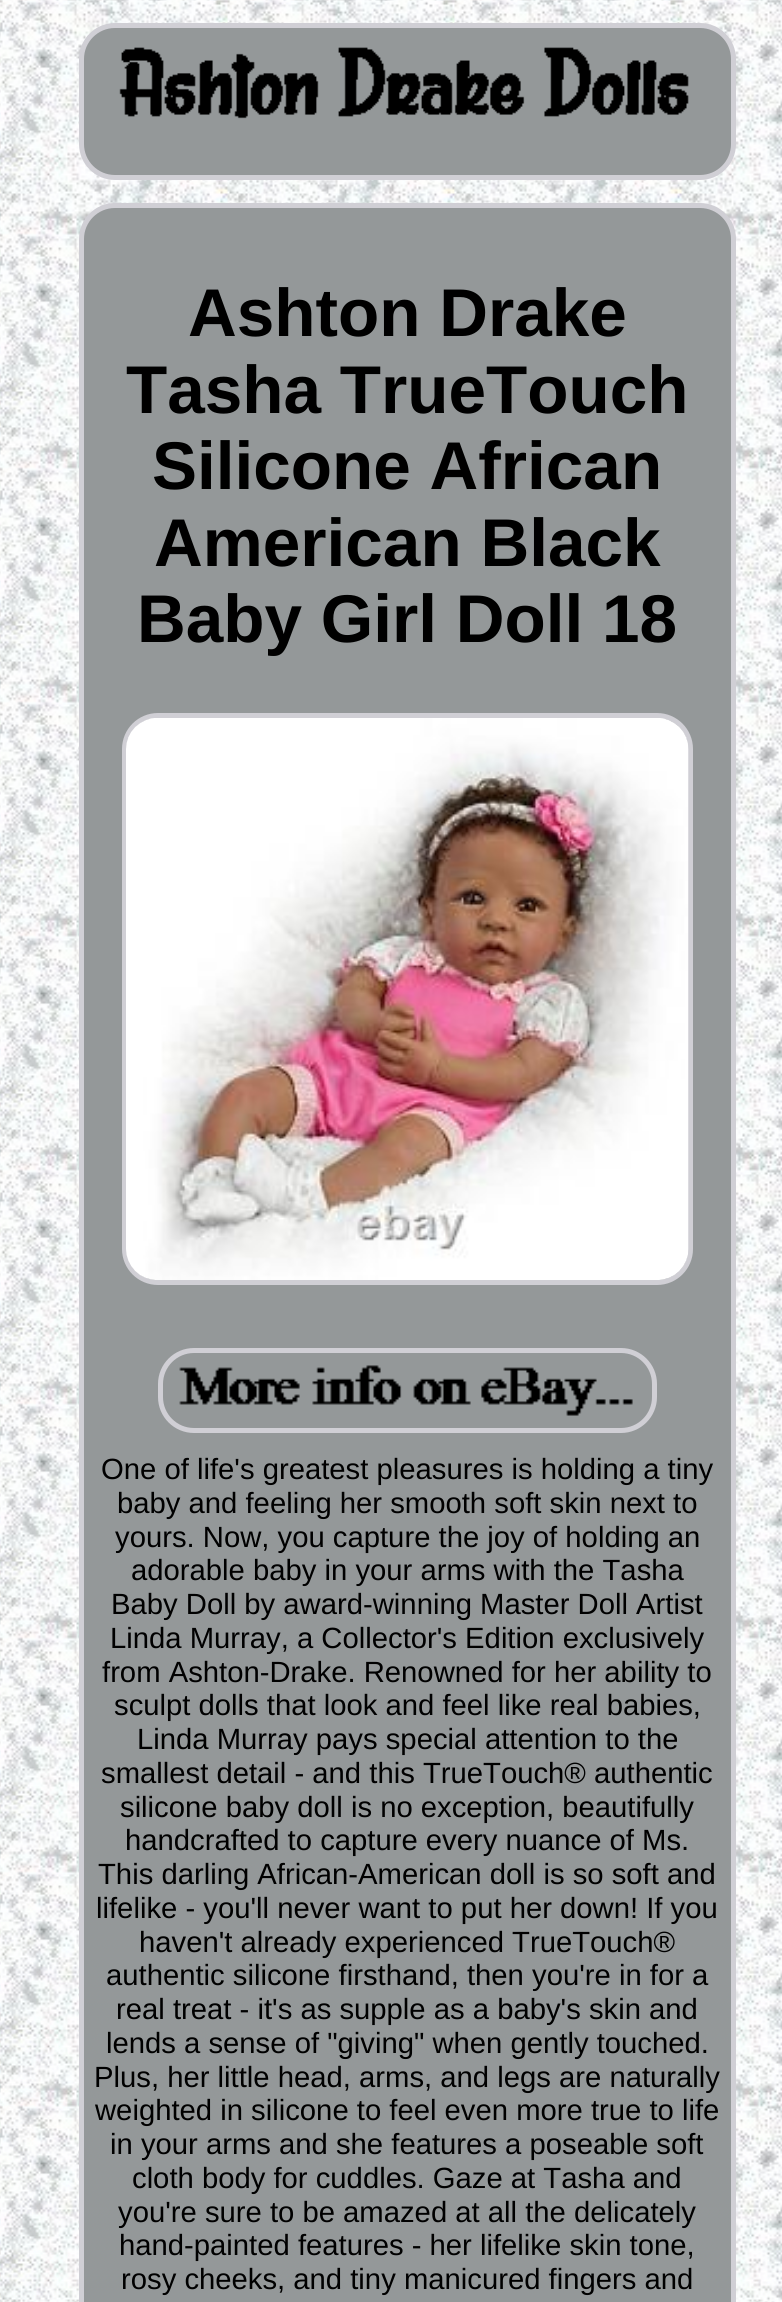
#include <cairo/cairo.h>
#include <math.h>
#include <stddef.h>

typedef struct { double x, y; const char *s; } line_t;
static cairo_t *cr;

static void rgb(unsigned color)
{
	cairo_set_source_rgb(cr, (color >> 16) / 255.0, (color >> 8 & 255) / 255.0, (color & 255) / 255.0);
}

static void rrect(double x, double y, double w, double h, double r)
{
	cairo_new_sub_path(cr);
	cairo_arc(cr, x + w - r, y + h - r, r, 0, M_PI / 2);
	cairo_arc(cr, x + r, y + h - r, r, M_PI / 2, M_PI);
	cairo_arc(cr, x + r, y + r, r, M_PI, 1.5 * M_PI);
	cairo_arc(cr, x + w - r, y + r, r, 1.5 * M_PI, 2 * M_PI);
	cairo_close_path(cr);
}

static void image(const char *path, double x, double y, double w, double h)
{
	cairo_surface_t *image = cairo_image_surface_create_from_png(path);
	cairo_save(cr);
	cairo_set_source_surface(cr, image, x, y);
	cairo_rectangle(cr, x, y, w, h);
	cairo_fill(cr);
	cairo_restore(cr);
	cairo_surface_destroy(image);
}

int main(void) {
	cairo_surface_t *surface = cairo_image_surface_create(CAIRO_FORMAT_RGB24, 782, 2302);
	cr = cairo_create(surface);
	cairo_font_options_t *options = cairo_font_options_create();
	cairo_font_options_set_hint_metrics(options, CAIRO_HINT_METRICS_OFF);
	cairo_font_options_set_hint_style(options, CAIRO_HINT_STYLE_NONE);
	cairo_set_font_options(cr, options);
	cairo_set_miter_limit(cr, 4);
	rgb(0xffffff);
	cairo_paint(cr);
	image("img/1.png", 0, 0, 782, 2302);
	rgb(0x949899);
	rrect(81.5, 25.5, 652, 152, 33.5);
	cairo_fill_preserve(cr);
	rgb(0xd0cfd5);
	cairo_set_line_width(cr, 5);
	cairo_stroke(cr);
	image("img/2.png", 119, 47, 570, 72);
	rgb(0x949899);
	rrect(81.5, 205.5, 652, 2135, 33.5);
	cairo_fill_preserve(cr);
	rgb(0xd0cfd5);
	cairo_stroke(cr);
	rrect(124.5, 715.5, 566, 567, 33.5);
	cairo_stroke(cr);
	image("img/3.png", 126, 718, 563, 562);
	rrect(160.5, 1350.5, 494, 80, 33.5);
	cairo_stroke(cr);
	image("img/4.png", 179, 1365, 454, 51);
	cairo_select_font_face(cr, "Liberation Sans", CAIRO_FONT_SLANT_NORMAL, CAIRO_FONT_WEIGHT_BOLD);
	cairo_set_font_size(cr, 67.5);
	rgb(0x000000);
	{
		static const line_t items[] = {
			{188, 336, "Ashton Drake"},
			{126, 413, "Tasha TrueTouch"},
			{152, 489, "Silicone African"},
			{154, 566, "American Black"},
			{137, 642, "Baby Girl Doll 18"},
		};
		for (size_t i = 0; i < sizeof items / sizeof *items; i++) {
			cairo_move_to(cr, items[i].x, items[i].y);
			cairo_show_text(cr, items[i].s);
		}
	}
	cairo_select_font_face(cr, "Liberation Sans", CAIRO_FONT_SLANT_NORMAL, CAIRO_FONT_WEIGHT_NORMAL);
	cairo_set_font_size(cr, 29.25);
	{
		static const line_t items[] = {
			{101, 1479, "One of life's greatest pleasures is holding a tiny"},
			{117, 1513, "baby and feeling her smooth soft skin next to"},
			{115, 1547, "yours. Now, you capture the joy of holding an"},
			{131, 1580, "adorable baby in your arms with the Tasha"},
			{111, 1614, "Baby Doll by award-winning Master Doll Artist"},
			{110, 1648, "Linda Murray, a Collector's Edition exclusively"},
			{102, 1682, "from Ashton-Drake. Renowned for her ability to"},
			{114, 1715, "sculpt dolls that look and feel like real babies,"},
			{137, 1749, "Linda Murray pays special attention to the"},
			{101, 1783, "smallest detail - and this TrueTouch® authentic"},
			{120, 1817, "silicone baby doll is no exception, beautifully"},
			{125, 1850, "handcrafted to capture every nuance of Ms."},
			{98, 1884, "This darling African-American doll is so soft and"},
			{96, 1918, "lifelike - you'll never want to put her down! If you"},
			{139, 1952, "haven't already experienced TrueTouch®"},
			{106, 1985, "authentic silicone firsthand, then you're in for a"},
			{116, 2019, "real treat - it's as supple as a baby's skin and"},
			{106, 2053, "lends a sense of \"giving\" when gently touched."},
			{94, 2087, "Plus, her little head, arms, and legs are naturally"},
			{95, 2120, "weighted in silicone to feel even more true to life"},
			{110, 2154, "in your arms and she features a poseable soft"},
			{132, 2188, "cloth body for cuddles. Gaze at Tasha and"},
			{118, 2222, "you're sure to be amazed at all the delicately"},
			{119, 2255, "hand-painted features - her lifelike skin tone,"},
			{121, 2289, "rosy cheeks, and tiny manicured fingers and"},
		};
		for (size_t i = 0; i < sizeof items / sizeof *items; i++) {
			cairo_move_to(cr, items[i].x, items[i].y);
			cairo_show_text(cr, items[i].s);
		}
	}
	cairo_surface_write_to_png(surface, "page.png");
	cairo_font_options_destroy(options);
	cairo_destroy(cr);
	cairo_surface_destroy(surface);
	return 0;
}
